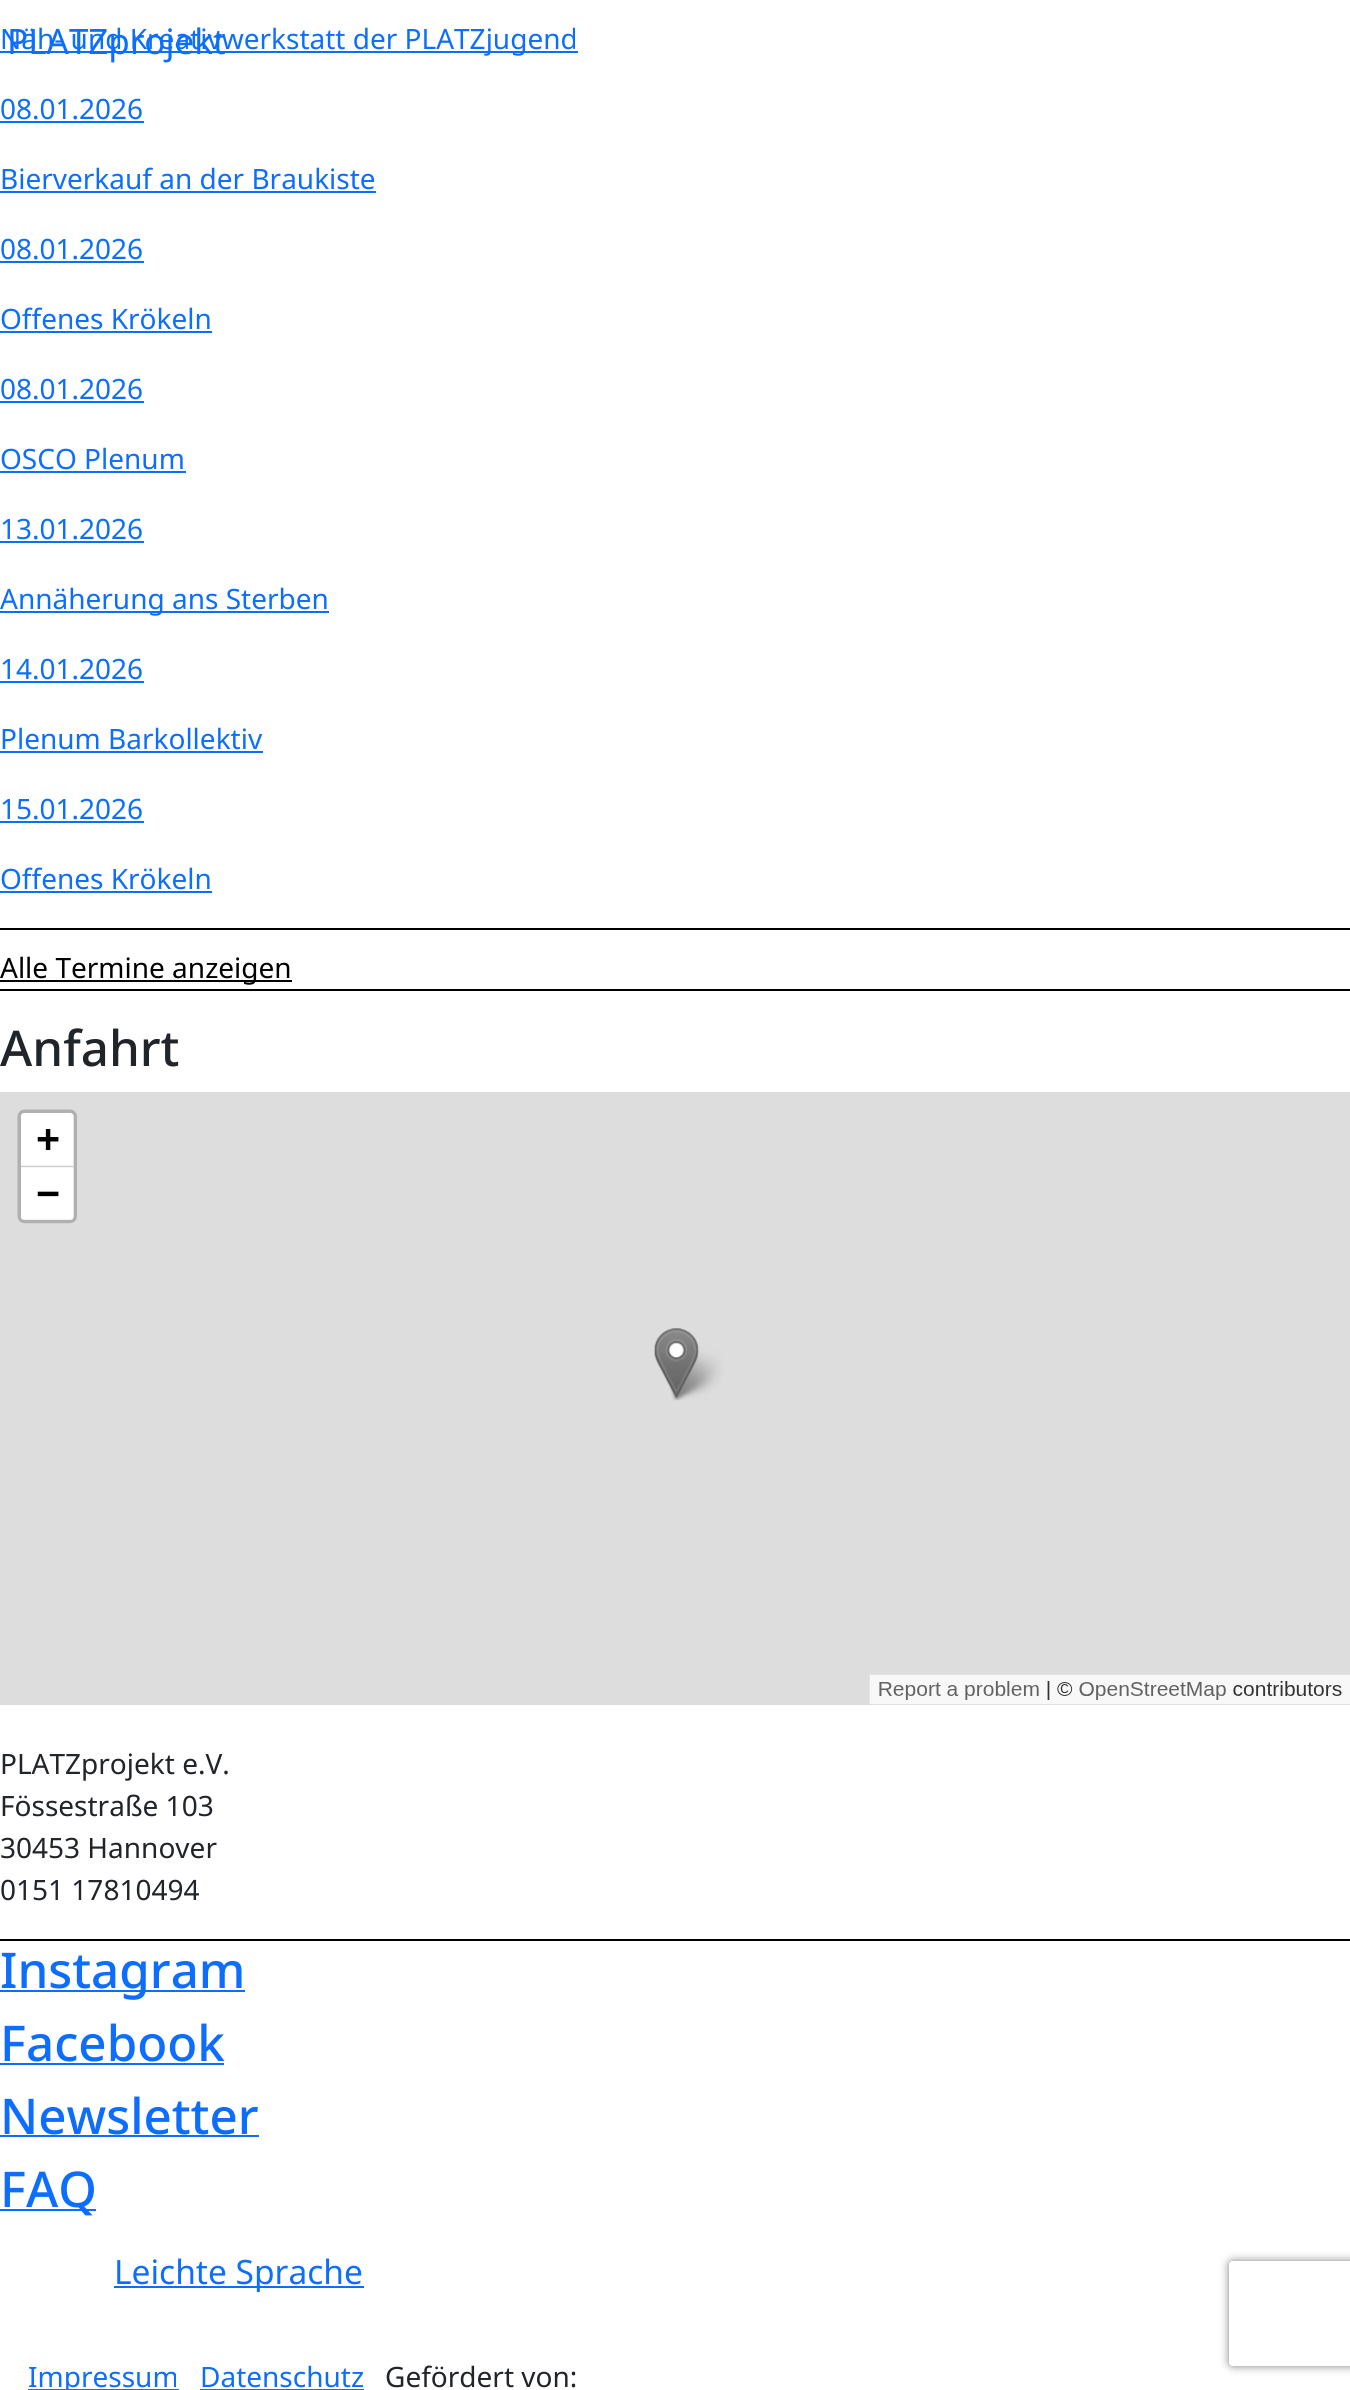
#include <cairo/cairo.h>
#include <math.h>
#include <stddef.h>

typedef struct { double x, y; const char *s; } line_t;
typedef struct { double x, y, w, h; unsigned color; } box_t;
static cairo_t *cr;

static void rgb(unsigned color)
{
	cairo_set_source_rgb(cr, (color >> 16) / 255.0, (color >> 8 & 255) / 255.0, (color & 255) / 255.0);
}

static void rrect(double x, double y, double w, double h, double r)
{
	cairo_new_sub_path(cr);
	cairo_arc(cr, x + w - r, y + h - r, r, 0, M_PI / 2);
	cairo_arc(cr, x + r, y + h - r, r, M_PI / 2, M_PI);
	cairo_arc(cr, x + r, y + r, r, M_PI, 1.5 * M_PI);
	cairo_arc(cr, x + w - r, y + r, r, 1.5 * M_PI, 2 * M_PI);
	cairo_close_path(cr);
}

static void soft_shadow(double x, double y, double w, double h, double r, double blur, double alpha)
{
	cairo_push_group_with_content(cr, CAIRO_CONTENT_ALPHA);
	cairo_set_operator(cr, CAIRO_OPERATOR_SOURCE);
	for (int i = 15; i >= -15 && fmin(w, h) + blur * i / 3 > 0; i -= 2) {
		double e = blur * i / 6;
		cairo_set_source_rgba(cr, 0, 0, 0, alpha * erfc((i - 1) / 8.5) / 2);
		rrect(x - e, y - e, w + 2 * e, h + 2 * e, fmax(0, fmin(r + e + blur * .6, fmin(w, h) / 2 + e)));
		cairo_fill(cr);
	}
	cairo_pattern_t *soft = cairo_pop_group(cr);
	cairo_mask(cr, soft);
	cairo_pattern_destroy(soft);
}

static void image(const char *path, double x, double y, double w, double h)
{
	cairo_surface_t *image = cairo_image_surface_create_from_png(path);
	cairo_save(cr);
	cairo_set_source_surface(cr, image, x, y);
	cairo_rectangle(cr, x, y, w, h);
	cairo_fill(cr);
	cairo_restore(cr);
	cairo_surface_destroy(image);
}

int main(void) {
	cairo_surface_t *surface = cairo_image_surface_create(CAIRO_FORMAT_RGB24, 1350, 2390);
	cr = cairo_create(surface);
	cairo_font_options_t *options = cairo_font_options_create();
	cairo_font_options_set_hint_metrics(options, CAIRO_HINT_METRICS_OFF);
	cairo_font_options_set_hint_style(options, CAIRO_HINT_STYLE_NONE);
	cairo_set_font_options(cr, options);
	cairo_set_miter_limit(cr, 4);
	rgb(0xffffff);
	cairo_paint(cr);
	{
		static const box_t items[] = {
			{0, 51, 578, 2, 0x0d6efd},
			{0, 121, 144, 2, 0x0d6efd},
			{0, 191, 376, 2, 0x0d6efd},
			{0, 261, 144, 2, 0x0d6efd},
			{0, 331, 212, 2, 0x0d6efd},
			{0, 401, 144, 2, 0x0d6efd},
			{0, 471, 186, 2, 0x0d6efd},
			{0, 541, 144, 2, 0x0d6efd},
			{0, 611, 329, 2, 0x0d6efd},
			{0, 681, 144, 2, 0x0d6efd},
			{0, 751, 263, 2, 0x0d6efd},
			{0, 821, 144, 2, 0x0d6efd},
			{0, 891, 212, 2, 0x0d6efd},
			{0, 928, 1350, 2, 0x000000},
			{0, 989, 1350, 2, 0x000000},
			{0, 980, 292, 2, 0x000000},
		};
		for (size_t i = 0; i < sizeof items / sizeof *items; i++) {
			rgb(items[i].color);
			cairo_rectangle(cr, items[i].x, items[i].y, items[i].w, items[i].h);
			cairo_fill(cr);
		}
	}
	image("img/1.png", 0, 1092, 1350, 613);
	{
		static const box_t items[] = {
			{0, 1939, 1350, 2, 0x000000},
			{0, 1990, 245, 2, 0x0d6efd},
			{0, 2063, 224, 2, 0x0d6efd},
			{0, 2135, 259, 2, 0x0d6efd},
			{0, 2209, 96, 2, 0x0d6efd},
			{114, 2286, 250, 2, 0x0d6efd},
			{28, 2389, 151, 1, 0x0d6efd},
			{200, 2389, 164, 1, 0x0d6efd},
		};
		for (size_t i = 0; i < sizeof items / sizeof *items; i++) {
			rgb(items[i].color);
			cairo_rectangle(cr, items[i].x, items[i].y, items[i].w, items[i].h);
			cairo_fill(cr);
		}
	}
	cairo_save(cr);
	cairo_set_fill_rule(cr, CAIRO_FILL_RULE_EVEN_ODD);
	cairo_new_path(cr);
	cairo_move_to(cr, 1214, 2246);
	cairo_line_to(cr, 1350, 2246);
	cairo_line_to(cr, 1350, 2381);
	cairo_line_to(cr, 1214, 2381);
	cairo_close_path(cr);
	cairo_move_to(cr, 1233, 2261);
	cairo_line_to(cr, 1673, 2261);
	cairo_curve_to(cr, 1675, 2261, 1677, 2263, 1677, 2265);
	cairo_line_to(cr, 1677, 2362);
	cairo_curve_to(cr, 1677, 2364, 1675, 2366, 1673, 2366);
	cairo_line_to(cr, 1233, 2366);
	cairo_curve_to(cr, 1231, 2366, 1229, 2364, 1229, 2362);
	cairo_line_to(cr, 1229, 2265);
	cairo_curve_to(cr, 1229, 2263, 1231, 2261, 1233, 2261);
	cairo_close_path(cr);
	cairo_clip(cr);
	rgb(0x808080);
	soft_shadow(1229, 2261, 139, 105, 4, 4.5, 1);
	cairo_restore(cr);
	cairo_select_font_face(cr, "Noto Sans", CAIRO_FONT_SLANT_NORMAL, CAIRO_FONT_WEIGHT_NORMAL);
	cairo_set_font_size(cr, 28);
	{
		static const line_t items[] = {
			{0, 49, "Näh- und Kreativwerkstatt der PLATZjugend"},
			{0, 119, "08.01.2026"},
			{0, 189, "Bierverkauf an der Braukiste"},
			{0, 259, "08.01.2026"},
			{0, 329, "Offenes Krökeln"},
			{0, 399, "08.01.2026"},
			{0, 469, "OSCO Plenum"},
			{0, 539, "13.01.2026"},
			{0, 609, "Annäherung ans Sterben"},
			{0, 679, "14.01.2026"},
			{0, 749, "Plenum Barkollektiv"},
			{0, 819, "15.01.2026"},
			{0, 889, "Offenes Krökeln"},
		};
		for (size_t i = 0; i < sizeof items / sizeof *items; i++) {
			cairo_move_to(cr, items[i].x, items[i].y);
			cairo_show_text(cr, items[i].s);
		}
	}
	rgb(0x000000);
	cairo_move_to(cr, 0, 978);
	cairo_show_text(cr, "Alle Termine anzeigen");
	cairo_select_font_face(cr, "Noto Sans Medium", CAIRO_FONT_SLANT_NORMAL, CAIRO_FONT_WEIGHT_NORMAL);
	cairo_set_font_size(cr, 49.25);
	rgb(0x212529);
	cairo_move_to(cr, 0, 1066);
	cairo_show_text(cr, "Anfahrt");
	cairo_select_font_face(cr, "Noto Sans", CAIRO_FONT_SLANT_NORMAL, CAIRO_FONT_WEIGHT_NORMAL);
	cairo_set_font_size(cr, 28);
	{
		static const line_t items[] = {
			{0, 1774, "PLATZprojekt e.V."},
			{0, 1816, "Fössestraße 103"},
			{0, 1858, "30453 Hannover"},
			{0, 1900, "0151 17810494"},
		};
		for (size_t i = 0; i < sizeof items / sizeof *items; i++) {
			cairo_move_to(cr, items[i].x, items[i].y);
			cairo_show_text(cr, items[i].s);
		}
	}
	cairo_select_font_face(cr, "Noto Sans Medium", CAIRO_FONT_SLANT_NORMAL, CAIRO_FONT_WEIGHT_NORMAL);
	cairo_set_font_size(cr, 49.25);
	rgb(0x0d6efd);
	{
		static const line_t items[] = {
			{0, 1988, "Instagram"},
			{0, 2061, "Facebook"},
			{0, 2134, "Newsletter"},
			{0, 2207, "FAQ"},
		};
		for (size_t i = 0; i < sizeof items / sizeof *items; i++) {
			cairo_move_to(cr, items[i].x, items[i].y);
			cairo_show_text(cr, items[i].s);
		}
	}
	cairo_select_font_face(cr, "Noto Sans", CAIRO_FONT_SLANT_NORMAL, CAIRO_FONT_WEIGHT_NORMAL);
	cairo_set_font_size(cr, 33.5);
	cairo_move_to(cr, 114, 2284);
	cairo_show_text(cr, "Leichte Sprache");
	cairo_set_font_size(cr, 35);
	cairo_move_to(cr, 7, 54);
	cairo_show_text(cr, "PLATZprojekt");
	cairo_set_font_size(cr, 28);
	cairo_move_to(cr, 28, 2387);
	cairo_show_text(cr, "Impressum");
	cairo_move_to(cr, 200, 2387);
	cairo_show_text(cr, "Datenschutz");
	rgb(0x212529);
	cairo_move_to(cr, 385, 2387);
	cairo_show_text(cr, "Gefördert von:");
	cairo_surface_write_to_png(surface, "page.png");
	cairo_font_options_destroy(options);
	cairo_destroy(cr);
	cairo_surface_destroy(surface);
	return 0;
}
